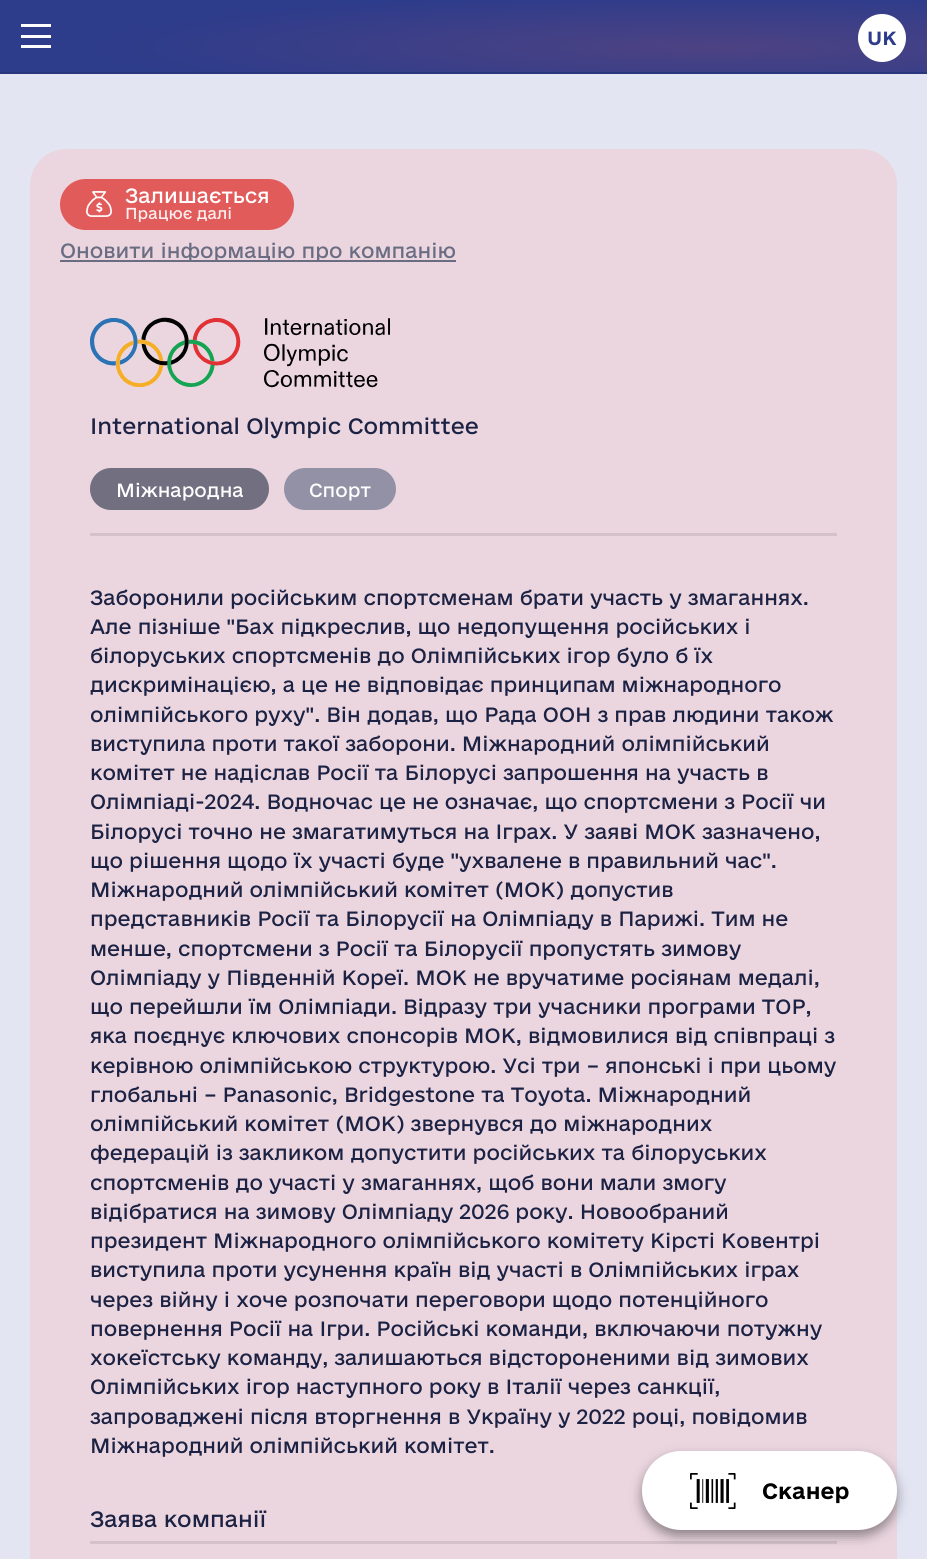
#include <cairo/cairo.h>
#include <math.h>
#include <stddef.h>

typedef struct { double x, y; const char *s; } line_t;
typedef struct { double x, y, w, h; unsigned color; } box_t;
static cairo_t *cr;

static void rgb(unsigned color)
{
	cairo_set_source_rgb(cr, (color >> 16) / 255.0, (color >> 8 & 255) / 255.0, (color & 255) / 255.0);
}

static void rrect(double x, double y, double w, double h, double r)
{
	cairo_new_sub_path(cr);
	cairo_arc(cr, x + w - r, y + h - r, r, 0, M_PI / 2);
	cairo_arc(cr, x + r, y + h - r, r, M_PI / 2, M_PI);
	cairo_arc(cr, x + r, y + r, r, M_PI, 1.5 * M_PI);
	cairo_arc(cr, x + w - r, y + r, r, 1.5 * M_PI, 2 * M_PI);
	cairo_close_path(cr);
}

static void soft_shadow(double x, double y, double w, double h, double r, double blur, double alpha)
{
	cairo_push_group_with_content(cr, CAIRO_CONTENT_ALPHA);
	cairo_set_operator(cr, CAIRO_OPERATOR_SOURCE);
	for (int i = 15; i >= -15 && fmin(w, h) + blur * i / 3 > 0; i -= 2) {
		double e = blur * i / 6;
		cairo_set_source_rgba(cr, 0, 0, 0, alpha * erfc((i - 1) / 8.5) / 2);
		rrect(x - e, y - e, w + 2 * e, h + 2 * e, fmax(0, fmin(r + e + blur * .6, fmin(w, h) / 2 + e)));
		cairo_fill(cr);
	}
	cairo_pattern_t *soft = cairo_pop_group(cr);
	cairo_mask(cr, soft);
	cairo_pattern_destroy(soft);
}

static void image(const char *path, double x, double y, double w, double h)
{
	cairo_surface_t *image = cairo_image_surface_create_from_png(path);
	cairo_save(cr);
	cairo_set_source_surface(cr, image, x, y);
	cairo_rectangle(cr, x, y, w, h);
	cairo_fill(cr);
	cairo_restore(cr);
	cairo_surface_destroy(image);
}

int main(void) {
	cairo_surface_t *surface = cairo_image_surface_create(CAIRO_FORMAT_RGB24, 927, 1559);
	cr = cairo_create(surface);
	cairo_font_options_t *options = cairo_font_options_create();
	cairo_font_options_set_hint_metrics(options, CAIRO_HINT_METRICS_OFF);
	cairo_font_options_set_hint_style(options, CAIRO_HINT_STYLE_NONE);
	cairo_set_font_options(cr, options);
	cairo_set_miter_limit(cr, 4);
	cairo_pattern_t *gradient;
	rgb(0xe3e5f3);
	cairo_paint(cr);
	rgb(0x29367d);
	cairo_rectangle(cr, 0, 72, 927, 2);
	cairo_fill(cr);
	gradient = cairo_pattern_create_radial(0, 0, 0, 0, 0, 1);
	cairo_pattern_set_matrix(gradient, &(cairo_matrix_t){1.0 / 1244, 0, 0, 1.0 / 109, -1.0 * 715 / 1244, -1.0 * 47 / 109});
	cairo_pattern_add_color_stop_rgba(gradient, 0, 0.302, 0.259, 0.514, 1);
	cairo_pattern_add_color_stop_rgba(gradient, 0.5, 0.176, 0.235, 0.545, 1);
	cairo_set_source(cr, gradient);
	cairo_pattern_destroy(gradient);
	cairo_rectangle(cr, 0, 0, 927, 72);
	cairo_fill(cr);
	{
		static const box_t items[] = {
			{21, 24, 30, 3, 0xffffff},
			{21, 35, 30, 3, 0xffffff},
			{21, 45, 30, 3, 0xffffff},
		};
		for (size_t i = 0; i < sizeof items / sizeof *items; i++) {
			rgb(items[i].color);
			cairo_rectangle(cr, items[i].x, items[i].y, items[i].w, items[i].h);
			cairo_fill(cr);
		}
	}
	cairo_arc(cr, 882, 38, 21.5, 0, 2 * M_PI);
	cairo_fill_preserve(cr);
	cairo_set_line_width(cr, 5);
	cairo_stroke(cr);
	rgb(0xebd6e0);
	rrect(30, 149, 867, 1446, 36);
	cairo_fill(cr);
	rgb(0xe25b5b);
	rrect(62.5, 181.5, 229, 46, 23);
	cairo_fill_preserve(cr);
	cairo_stroke(cr);
	image("img/1.png", 86, 191, 26, 26);
	rgb(0x6a6c82);
	cairo_rectangle(cr, 60, 260, 396, 2);
	cairo_fill(cr);
	image("img/2.png", 90, 317, 300, 71);
	rgb(0xd4c1ca);
	cairo_rectangle(cr, 90, 533, 747, 3);
	cairo_fill(cr);
	rgb(0x716f80);
	rrect(92.5, 470.5, 174, 37, 18.5);
	cairo_fill_preserve(cr);
	cairo_stroke(cr);
	rgb(0x9391a6);
	rrect(286.5, 470.5, 107, 37, 18.5);
	cairo_fill_preserve(cr);
	cairo_stroke(cr);
	rgb(0xd4c1ca);
	cairo_rectangle(cr, 90, 1541, 747, 3);
	cairo_fill(cr);
	rgb(0x000000);
	soft_shadow(642, 1457, 255, 79, 39, 6, 0.4);
	rgb(0xffffff);
	rrect(642, 1451, 255, 79, 39);
	cairo_fill(cr);
	image("img/3.png", 690, 1473, 46, 36);
	cairo_select_font_face(cr, "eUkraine", CAIRO_FONT_SLANT_NORMAL, CAIRO_FONT_WEIGHT_BOLD);
	cairo_set_font_size(cr, 18);
	rgb(0x2d3c8b);
	cairo_move_to(cr, 867, 45);
	cairo_show_text(cr, "UK");
	cairo_select_font_face(cr, "eUkraine", CAIRO_FONT_SLANT_NORMAL, CAIRO_FONT_WEIGHT_NORMAL);
	cairo_set_font_size(cr, 19.5);
	rgb(0xffffff);
	cairo_move_to(cr, 125, 203);
	cairo_show_text(cr, "Залишається");
	cairo_set_font_size(cr, 15);
	rgb(0xfcefef);
	cairo_move_to(cr, 125, 219);
	cairo_show_text(cr, "Працює далі");
	cairo_set_font_size(cr, 19.5);
	rgb(0x6a6c82);
	cairo_move_to(cr, 60, 258);
	cairo_show_text(cr, "Оновити інформацію про компанію");
	cairo_set_font_size(cr, 21);
	rgb(0x1c2243);
	cairo_move_to(cr, 90, 434);
	cairo_show_text(cr, "International Olympic Committee");
	cairo_set_font_size(cr, 18);
	rgb(0xffffff);
	cairo_move_to(cr, 116, 497);
	cairo_show_text(cr, "Міжнародна");
	cairo_move_to(cr, 309, 497);
	cairo_show_text(cr, "Спорт");
	cairo_set_font_size(cr, 19.5);
	rgb(0x1c2243);
	{
		static const line_t items[] = {
			{90, 605, "Заборонили російським спортсменам брати участь у змаганнях."},
			{90, 634, "Але пізніше \"Бах підкреслив, що недопущення російських і"},
			{90, 663, "білоруських спортсменів до Олімпійських ігор було б їх"},
			{90, 692, "дискримінацією, а це не відповідає принципам міжнародного"},
			{90, 722, "олімпійського руху\". Він додав, що Рада ООН з прав людини також"},
			{90, 751, "виступила проти такої заборони. Міжнародний олімпійський"},
			{90, 780, "комітет не надіслав Росії та Білорусі запрошення на участь в"},
			{90, 809, "Олімпіаді-2024. Водночас це не означає, що спортсмени з Росії чи"},
			{90, 839, "Білорусі точно не змагатимуться на Іграх. У заяві МОК зазначено,"},
			{90, 868, "що рішення щодо їх участі буде \"ухвалене в правильний час\"."},
			{90, 897, "Міжнародний олімпійський комітет (МОК) допустив"},
			{90, 926, "представників Росії та Білорусії на Олімпіаду в Парижі. Тим не"},
			{90, 956, "менше, спортсмени з Росії та Білорусії пропустять зимову"},
			{90, 985, "Олімпіаду у Південній Кореї. МОК не вручатиме росіянам медалі,"},
			{90, 1014, "що перейшли їм Олімпіади. Відразу три учасники програми TOP,"},
			{90, 1043, "яка поєднує ключових спонсорів МОК, відмовилися від співпраці з"},
			{90, 1073, "керівною олімпійською структурою. Усі три – японські і при цьому"},
			{90, 1102, "глобальні – Panasonic, Bridgestone та Toyota. Міжнародний"},
			{90, 1131, "олімпійський комітет (МОК) звернувся до міжнародних"},
			{90, 1160, "федерацій із закликом допустити російських та білоруських"},
			{90, 1190, "спортсменів до участі у змаганнях, щоб вони мали змогу"},
			{90, 1219, "відібратися на зимову Олімпіаду 2026 року. Новообраний"},
			{90, 1248, "президент Міжнародного олімпійського комітету Кірсті Ковентрі"},
			{90, 1277, "виступила проти усунення країн від участі в Олімпійських іграх"},
			{90, 1307, "через війну і хоче розпочати переговори щодо потенційного"},
			{90, 1336, "повернення Росії на Ігри. Російські команди, включаючи потужну"},
			{90, 1365, "хокеїстську команду, залишаються відстороненими від зимових"},
			{90, 1394, "Олімпійських ігор наступного року в Італії через санкції,"},
			{90, 1424, "запроваджені після вторгнення в Україну у 2022 році, повідомив"},
			{90, 1453, "Міжнародний олімпійський комітет."},
		};
		for (size_t i = 0; i < sizeof items / sizeof *items; i++) {
			cairo_move_to(cr, items[i].x, items[i].y);
			cairo_show_text(cr, items[i].s);
		}
	}
	cairo_set_font_size(cr, 21);
	cairo_move_to(cr, 90, 1527);
	cairo_show_text(cr, "Заява компанії");
	cairo_select_font_face(cr, "eUkraine", CAIRO_FONT_SLANT_NORMAL, CAIRO_FONT_WEIGHT_BOLD);
	rgb(0x000000);
	cairo_move_to(cr, 762, 1499);
	cairo_show_text(cr, "Сканер");
	cairo_surface_write_to_png(surface, "page.png");
	cairo_font_options_destroy(options);
	cairo_destroy(cr);
	cairo_surface_destroy(surface);
	return 0;
}
